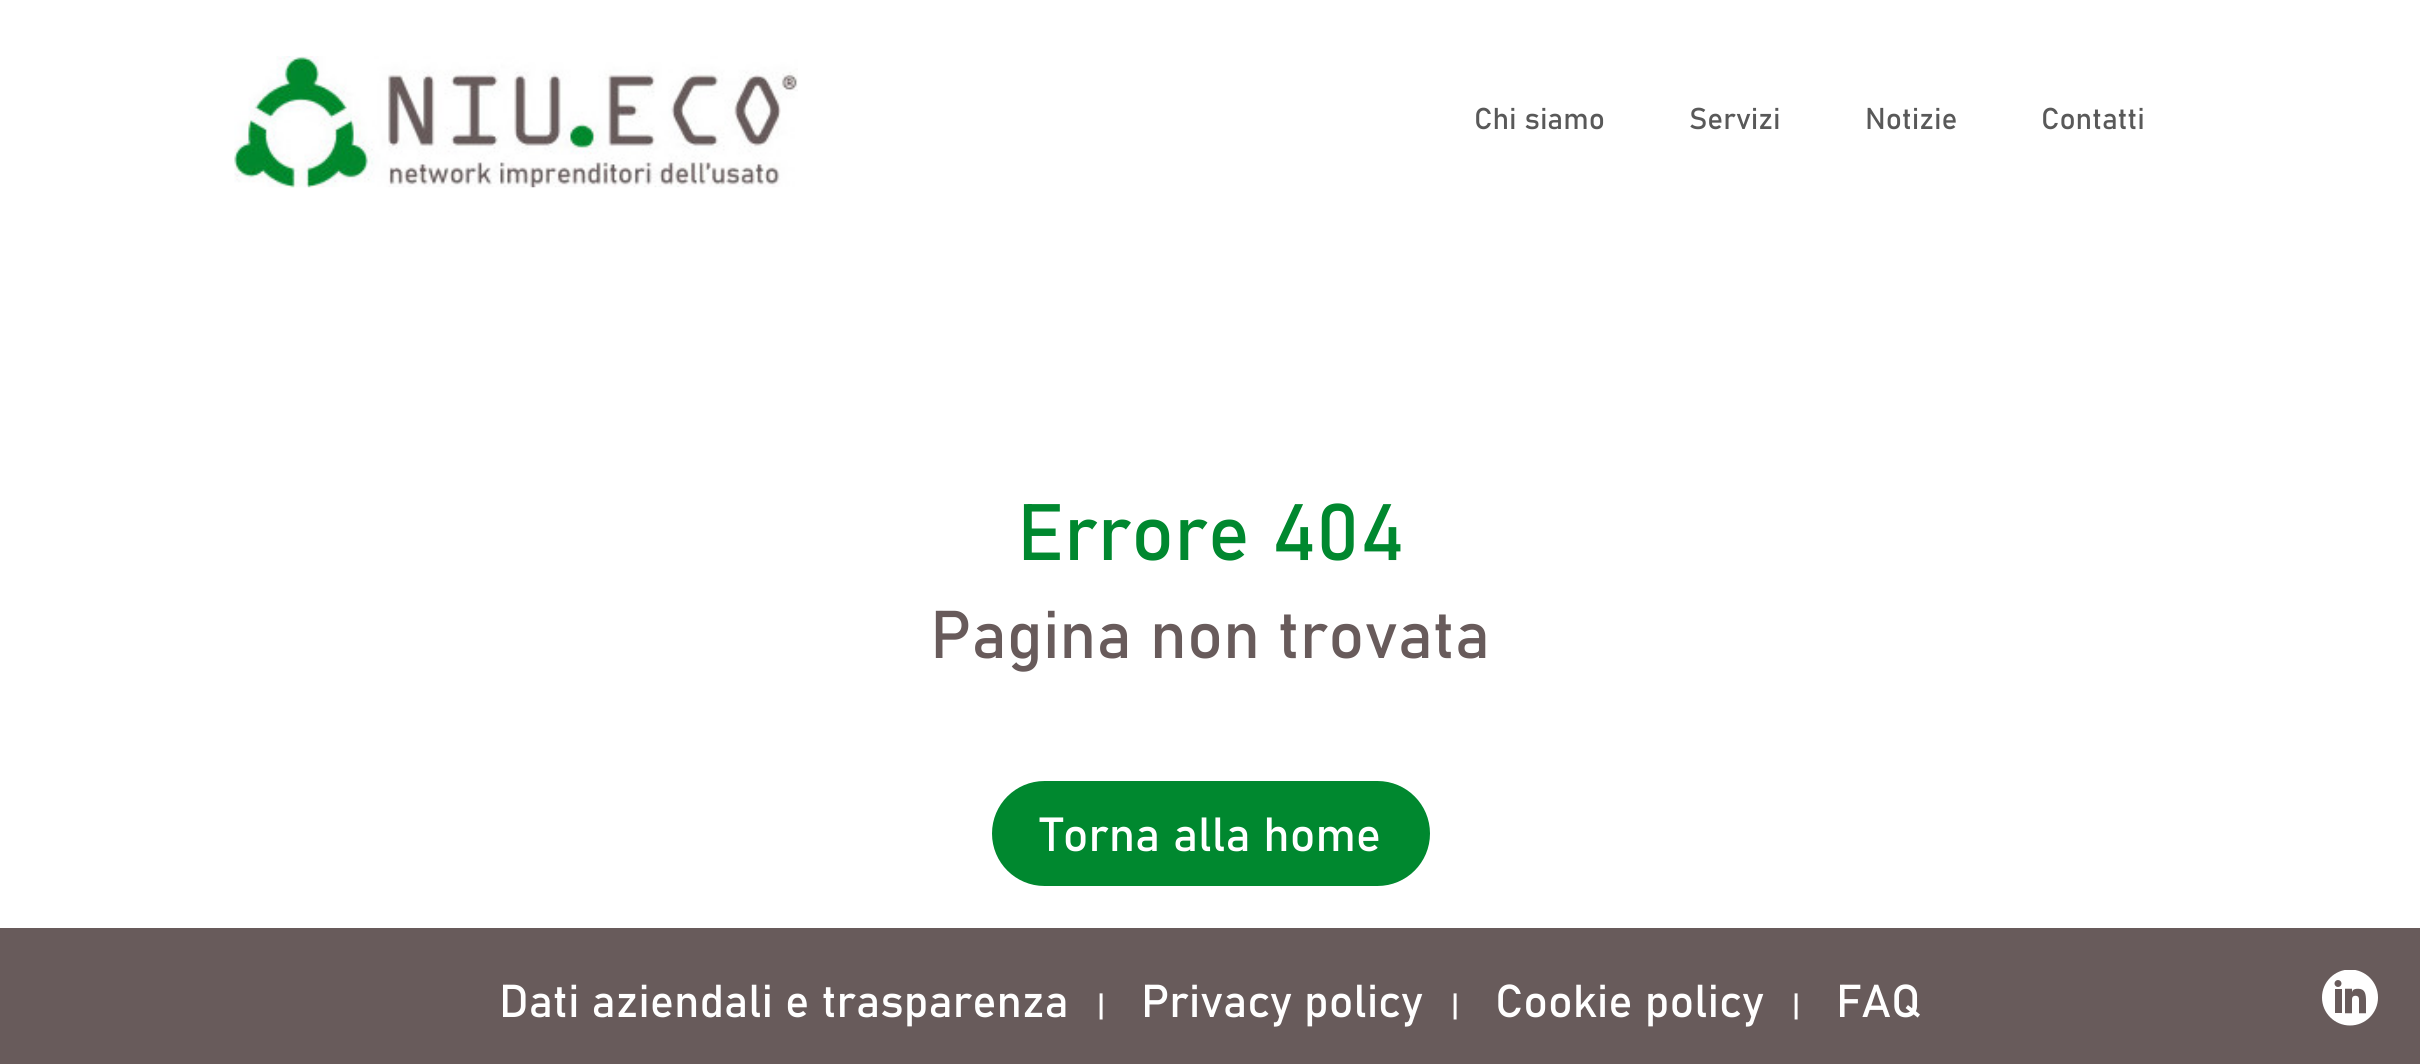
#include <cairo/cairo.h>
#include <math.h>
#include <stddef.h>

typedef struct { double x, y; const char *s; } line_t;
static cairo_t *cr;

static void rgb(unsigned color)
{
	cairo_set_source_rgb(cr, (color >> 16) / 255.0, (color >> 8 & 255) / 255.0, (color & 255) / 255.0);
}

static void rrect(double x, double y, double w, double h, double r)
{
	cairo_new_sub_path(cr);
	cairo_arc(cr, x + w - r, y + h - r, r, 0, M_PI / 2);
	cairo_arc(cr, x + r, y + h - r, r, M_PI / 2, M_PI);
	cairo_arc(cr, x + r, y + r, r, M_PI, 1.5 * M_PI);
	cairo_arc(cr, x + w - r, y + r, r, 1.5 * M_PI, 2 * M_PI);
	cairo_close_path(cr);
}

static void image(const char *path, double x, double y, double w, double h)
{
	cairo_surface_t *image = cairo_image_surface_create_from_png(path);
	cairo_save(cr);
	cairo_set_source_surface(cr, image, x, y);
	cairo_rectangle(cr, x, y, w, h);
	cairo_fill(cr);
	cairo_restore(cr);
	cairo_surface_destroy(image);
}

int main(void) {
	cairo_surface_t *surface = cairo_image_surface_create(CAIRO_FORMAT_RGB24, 2420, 1064);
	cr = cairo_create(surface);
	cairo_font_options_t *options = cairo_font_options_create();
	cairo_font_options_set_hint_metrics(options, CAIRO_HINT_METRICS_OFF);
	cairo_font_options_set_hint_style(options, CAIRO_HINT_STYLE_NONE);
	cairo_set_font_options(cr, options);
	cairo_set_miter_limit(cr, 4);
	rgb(0xffffff);
	cairo_paint(cr);
	image("img/1.png", 234, 56, 564, 132);
	rgb(0x00882f);
	rrect(992, 781, 438, 105, 52.5);
	cairo_fill(cr);
	rgb(0x685b5b);
	cairo_rectangle(cr, 0, 928, 2420, 136);
	cairo_fill(cr);
	image("img/2.png", 2322, 970, 56, 56);
	cairo_select_font_face(cr, "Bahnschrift", CAIRO_FONT_SLANT_NORMAL, CAIRO_FONT_WEIGHT_NORMAL);
	cairo_set_font_size(cr, 29.75);
	rgb(0x595959);
	{
		static const line_t items[] = {
			{1474, 129, "Chi siamo"},
			{1689, 129, "Servizi"},
			{1865, 129, "Notizie"},
			{2041, 129, "Contatti"},
		};
		for (size_t i = 0; i < sizeof items / sizeof *items; i++) {
			cairo_move_to(cr, items[i].x, items[i].y);
			cairo_show_text(cr, items[i].s);
		}
	}
	cairo_set_font_size(cr, 78.75);
	rgb(0x00882f);
	cairo_move_to(cr, 1017, 560);
	cairo_show_text(cr, "Errore 404");
	cairo_set_font_size(cr, 66.5);
	rgb(0x685b5b);
	cairo_move_to(cr, 930, 658);
	cairo_show_text(cr, "Pagina non trovata");
	cairo_set_font_size(cr, 47.25);
	rgb(0xffffff);
	cairo_move_to(cr, 1040, 851);
	cairo_show_text(cr, "Torna alla home");
	cairo_set_font_size(cr, 45.5);
	cairo_move_to(cr, 499, 1017);
	cairo_show_text(cr, "Dati aziendali e trasparenza");
	cairo_set_font_size(cr, 29.75);
	cairo_move_to(cr, 1097, 1017);
	cairo_show_text(cr, "|");
	cairo_set_font_size(cr, 45.5);
	cairo_move_to(cr, 1141, 1017);
	cairo_show_text(cr, "Privacy policy");
	cairo_set_font_size(cr, 29.75);
	cairo_move_to(cr, 1451, 1017);
	cairo_show_text(cr, "|");
	cairo_set_font_size(cr, 45.5);
	cairo_move_to(cr, 1495, 1017);
	cairo_show_text(cr, "Cookie policy");
	cairo_set_font_size(cr, 29.75);
	cairo_move_to(cr, 1792, 1017);
	cairo_show_text(cr, "|");
	cairo_set_font_size(cr, 45.5);
	cairo_move_to(cr, 1836, 1017);
	cairo_show_text(cr, "FAQ");
	cairo_surface_write_to_png(surface, "page.png");
	cairo_font_options_destroy(options);
	cairo_destroy(cr);
	cairo_surface_destroy(surface);
	return 0;
}
